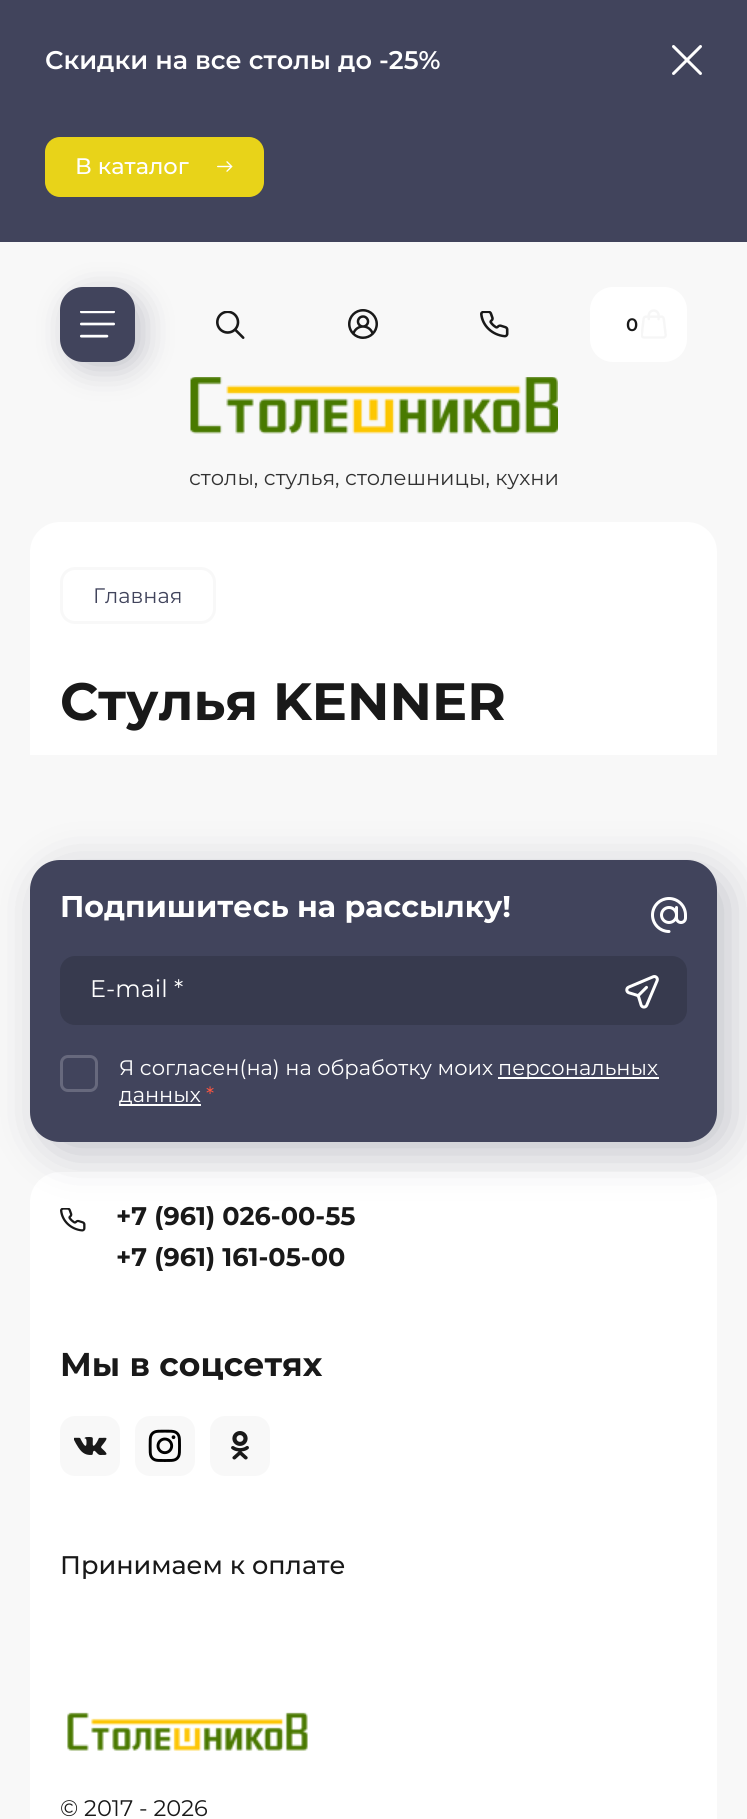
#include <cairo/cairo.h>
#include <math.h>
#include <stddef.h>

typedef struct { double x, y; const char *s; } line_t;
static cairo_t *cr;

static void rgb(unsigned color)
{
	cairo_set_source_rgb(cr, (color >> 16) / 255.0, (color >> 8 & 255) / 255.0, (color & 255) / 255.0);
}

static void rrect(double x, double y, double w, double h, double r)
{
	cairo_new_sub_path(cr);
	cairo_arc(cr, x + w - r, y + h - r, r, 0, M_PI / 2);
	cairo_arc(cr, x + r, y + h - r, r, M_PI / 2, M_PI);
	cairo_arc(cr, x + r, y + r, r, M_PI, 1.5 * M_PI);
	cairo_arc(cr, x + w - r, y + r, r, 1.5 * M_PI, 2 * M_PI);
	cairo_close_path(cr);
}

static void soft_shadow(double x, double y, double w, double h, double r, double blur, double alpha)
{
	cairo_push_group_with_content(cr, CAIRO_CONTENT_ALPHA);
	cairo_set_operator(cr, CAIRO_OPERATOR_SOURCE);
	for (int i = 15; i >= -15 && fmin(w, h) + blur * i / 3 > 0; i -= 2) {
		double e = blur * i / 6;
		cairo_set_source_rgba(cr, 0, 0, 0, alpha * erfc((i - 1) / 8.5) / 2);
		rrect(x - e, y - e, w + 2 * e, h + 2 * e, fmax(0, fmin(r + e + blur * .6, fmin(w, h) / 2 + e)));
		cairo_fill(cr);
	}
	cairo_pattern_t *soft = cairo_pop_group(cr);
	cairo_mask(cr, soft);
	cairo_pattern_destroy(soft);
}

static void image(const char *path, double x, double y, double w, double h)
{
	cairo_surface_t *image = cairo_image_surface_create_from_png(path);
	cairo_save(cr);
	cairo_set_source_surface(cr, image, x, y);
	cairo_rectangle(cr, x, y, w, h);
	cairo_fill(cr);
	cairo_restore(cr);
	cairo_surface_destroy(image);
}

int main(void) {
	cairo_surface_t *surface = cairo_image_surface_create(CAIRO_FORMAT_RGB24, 747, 1819);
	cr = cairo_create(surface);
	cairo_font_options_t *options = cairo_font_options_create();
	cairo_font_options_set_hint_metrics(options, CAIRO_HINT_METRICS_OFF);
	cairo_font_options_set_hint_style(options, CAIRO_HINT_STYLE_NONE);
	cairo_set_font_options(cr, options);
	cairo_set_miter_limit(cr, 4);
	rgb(0xf8f8f8);
	cairo_paint(cr);
	rgb(0x41445c);
	cairo_rectangle(cr, 0, 0, 747, 242);
	cairo_fill(cr);
	image("img/1.png", 672, 45, 30, 30);
	rgb(0xe8d319);
	rrect(45, 137, 219, 60, 15);
	cairo_fill(cr);
	image("img/2.png", 217, 161, 16, 11);
	rgb(0x41445c);
	soft_shadow(68, 294, 75, 75, 23, 15, 0.3);
	rgb(0x41445c);
	rrect(60, 287, 75, 75, 23);
	cairo_fill(cr);
	image("img/3.png", 80, 311, 35, 27);
	image("img/4.png", 216, 311, 29, 28);
	image("img/5.png", 348, 309, 30, 30);
	image("img/6.png", 480, 311, 29, 27);
	rgb(0xffffff);
	rrect(590, 287, 97, 75, 23);
	cairo_fill(cr);
	image("img/7.png", 641, 309, 26, 30);
	image("img/8.png", 190, 377, 368, 57);
	cairo_new_path(cr);
	cairo_move_to(cr, 60, 522);
	cairo_line_to(cr, 687, 522);
	cairo_curve_to(cr, 703.5, 522, 717, 535.5, 717, 552);
	cairo_line_to(cr, 717, 755);
	cairo_line_to(cr, 30, 755);
	cairo_line_to(cr, 30, 552);
	cairo_curve_to(cr, 30, 535.5, 43.5, 522, 60, 522);
	cairo_close_path(cr);
	cairo_fill(cr);
	rgb(0xf8f8f8);
	rrect(60, 567, 156, 57, 15);
	cairo_fill(cr);
	rgb(0xffffff);
	rrect(63, 570, 150, 51, 12);
	cairo_fill(cr);
	rrect(30, 1172, 687, 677, 30);
	cairo_fill(cr);
	rgb(0x41445c);
	soft_shadow(41, 870, 687, 282, 30, 22.5, 0.3);
	rgb(0x41445c);
	rrect(30, 860, 687, 282, 30);
	cairo_fill(cr);
	image("img/9.png", 651, 897, 36, 36);
	rgb(0x373a4e);
	rrect(60, 956, 627, 69, 15);
	cairo_fill(cr);
	image("img/10.png", 625, 975, 34, 34);
	rrect(61.5, 1056.5, 35, 34, 6.5);
	rgb(0x67697d);
	cairo_set_line_width(cr, 3);
	cairo_stroke(cr);
	rgb(0xffffff);
	cairo_rectangle(cr, 498, 1077, 161, 2);
	cairo_fill(cr);
	cairo_rectangle(cr, 119, 1104, 82, 2);
	cairo_fill(cr);
	image("img/11.png", 60, 1208, 26, 24);
	rgb(0xf8f8f8);
	rrect(60, 1416, 60, 60, 15);
	cairo_fill(cr);
	image("img/12.png", 74, 1437, 33, 18);
	rrect(135, 1416, 60, 60, 15);
	cairo_fill(cr);
	image("img/13.png", 148, 1429, 33, 33);
	rrect(210, 1416, 60, 60, 15);
	cairo_fill(cr);
	image("img/14.png", 231, 1431, 18, 29);
	image("img/15.png", 67, 1712, 241, 39);
	cairo_select_font_face(cr, "Montserrat SemiBold", CAIRO_FONT_SLANT_NORMAL, CAIRO_FONT_WEIGHT_NORMAL);
	cairo_set_font_size(cr, 25.5);
	rgb(0xffffff);
	cairo_move_to(cr, 45, 69);
	cairo_show_text(cr, "Скидки на все столы до -25%");
	cairo_select_font_face(cr, "Montserrat Medium", CAIRO_FONT_SLANT_NORMAL, CAIRO_FONT_WEIGHT_NORMAL);
	cairo_set_font_size(cr, 22.5);
	cairo_move_to(cr, 75, 174);
	cairo_show_text(cr, "В каталог");
	cairo_select_font_face(cr, "Montserrat SemiBold", CAIRO_FONT_SLANT_NORMAL, CAIRO_FONT_WEIGHT_NORMAL);
	cairo_set_font_size(cr, 18);
	rgb(0x191919);
	cairo_move_to(cr, 626, 331);
	cairo_show_text(cr, "0");
	cairo_select_font_face(cr, "Montserrat", CAIRO_FONT_SLANT_NORMAL, CAIRO_FONT_WEIGHT_NORMAL);
	cairo_set_font_size(cr, 21);
	rgb(0x323232);
	cairo_move_to(cr, 189, 485);
	cairo_show_text(cr, "столы, стулья, столешницы, кухни");
	rgb(0x41445c);
	cairo_move_to(cr, 93, 603);
	cairo_show_text(cr, "Главная");
	cairo_select_font_face(cr, "Montserrat", CAIRO_FONT_SLANT_NORMAL, CAIRO_FONT_WEIGHT_BOLD);
	cairo_set_font_size(cr, 52.5);
	rgb(0x191919);
	cairo_move_to(cr, 60, 720);
	cairo_show_text(cr, "Стулья KENNER");
	cairo_set_font_size(cr, 30);
	rgb(0xffffff);
	cairo_move_to(cr, 60, 917);
	cairo_show_text(cr, "Подпишитесь на рассылку!");
	cairo_select_font_face(cr, "Montserrat", CAIRO_FONT_SLANT_NORMAL, CAIRO_FONT_WEIGHT_NORMAL);
	cairo_set_font_size(cr, 24);
	cairo_move_to(cr, 90, 997);
	cairo_show_text(cr, "E-mail *");
	cairo_set_font_size(cr, 21);
	{
		static const line_t items[] = {
			{119, 1075, "Я согласен(на) на обработку моих"},
			{498, 1075, "персональных"},
			{119, 1102, "данных"},
		};
		for (size_t i = 0; i < sizeof items / sizeof *items; i++) {
			cairo_move_to(cr, items[i].x, items[i].y);
			cairo_show_text(cr, items[i].s);
		}
	}
	rgb(0xff5640);
	cairo_move_to(cr, 206, 1102);
	cairo_show_text(cr, "*");
	cairo_select_font_face(cr, "Montserrat", CAIRO_FONT_SLANT_NORMAL, CAIRO_FONT_WEIGHT_BOLD);
	cairo_set_font_size(cr, 25.5);
	rgb(0x191919);
	cairo_move_to(cr, 116, 1225);
	cairo_show_text(cr, "+7 (961) 026-00-55");
	cairo_move_to(cr, 116, 1266);
	cairo_show_text(cr, "+7 (961) 161-05-00");
	cairo_set_font_size(cr, 33);
	cairo_move_to(cr, 60, 1376);
	cairo_show_text(cr, "Мы в соцсетях");
	cairo_select_font_face(cr, "Montserrat Medium", CAIRO_FONT_SLANT_NORMAL, CAIRO_FONT_WEIGHT_NORMAL);
	cairo_set_font_size(cr, 25.5);
	cairo_move_to(cr, 60, 1574);
	cairo_show_text(cr, "Принимаем к оплате");
	cairo_select_font_face(cr, "Montserrat", CAIRO_FONT_SLANT_NORMAL, CAIRO_FONT_WEIGHT_NORMAL);
	cairo_set_font_size(cr, 22.5);
	cairo_move_to(cr, 60, 1816);
	cairo_show_text(cr, "© 2017 - 2026");
	cairo_surface_write_to_png(surface, "page.png");
	cairo_font_options_destroy(options);
	cairo_destroy(cr);
	cairo_surface_destroy(surface);
	return 0;
}
